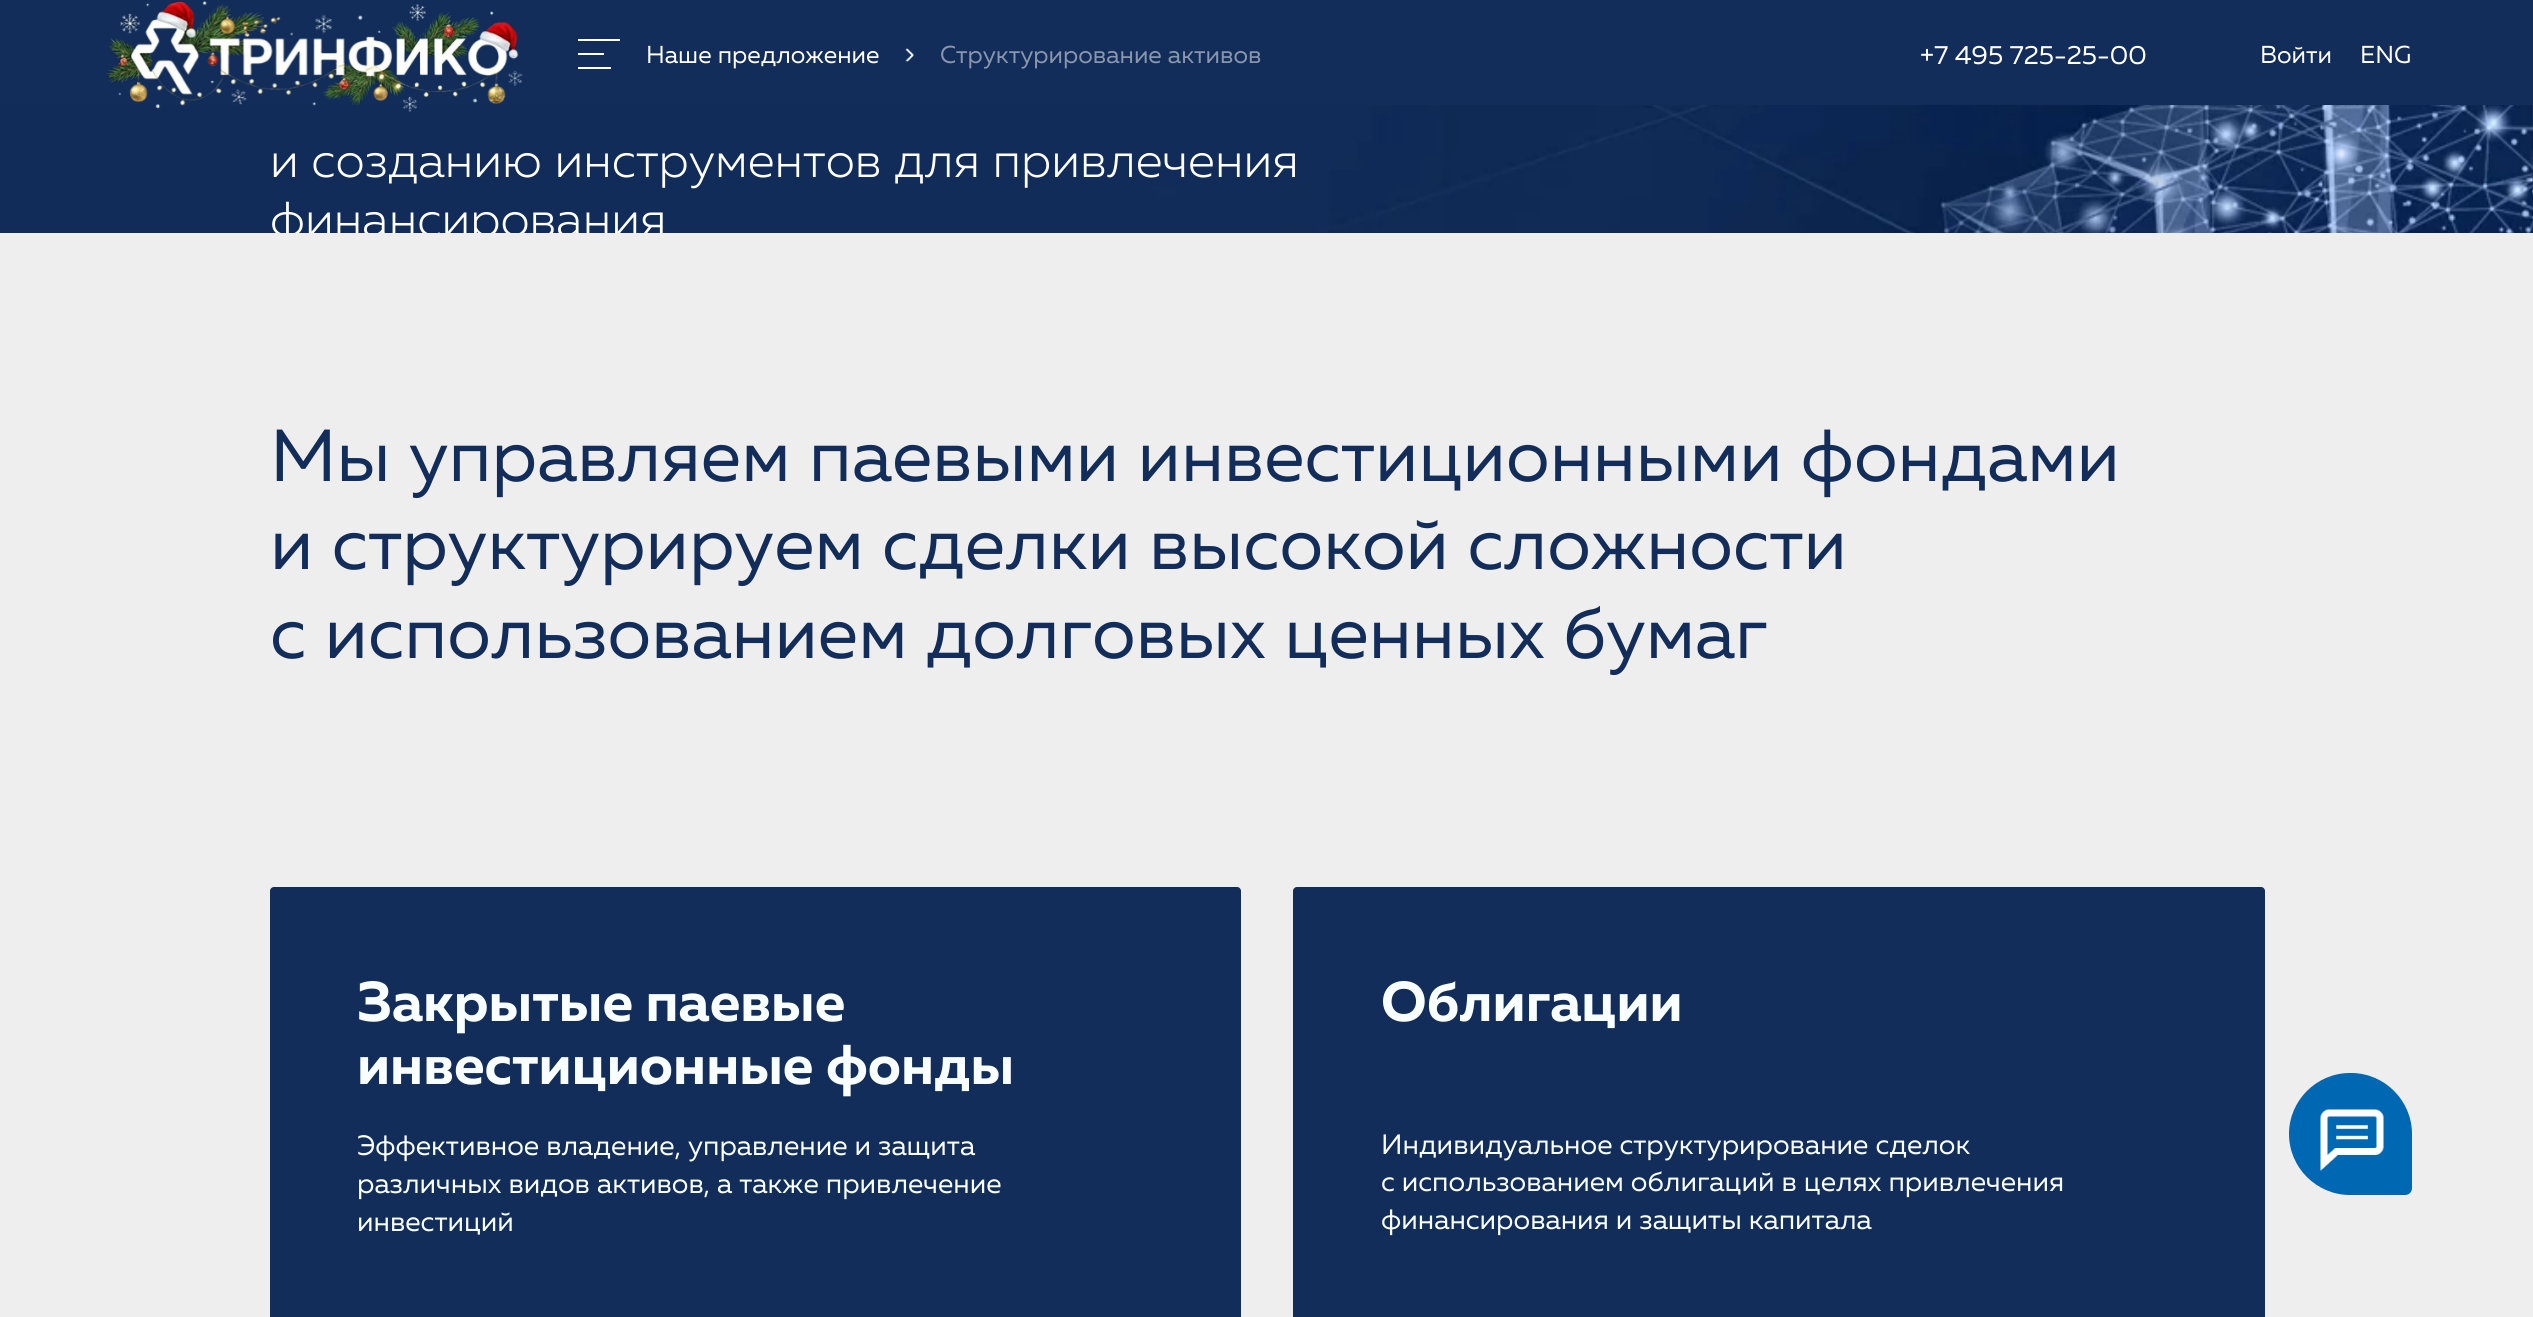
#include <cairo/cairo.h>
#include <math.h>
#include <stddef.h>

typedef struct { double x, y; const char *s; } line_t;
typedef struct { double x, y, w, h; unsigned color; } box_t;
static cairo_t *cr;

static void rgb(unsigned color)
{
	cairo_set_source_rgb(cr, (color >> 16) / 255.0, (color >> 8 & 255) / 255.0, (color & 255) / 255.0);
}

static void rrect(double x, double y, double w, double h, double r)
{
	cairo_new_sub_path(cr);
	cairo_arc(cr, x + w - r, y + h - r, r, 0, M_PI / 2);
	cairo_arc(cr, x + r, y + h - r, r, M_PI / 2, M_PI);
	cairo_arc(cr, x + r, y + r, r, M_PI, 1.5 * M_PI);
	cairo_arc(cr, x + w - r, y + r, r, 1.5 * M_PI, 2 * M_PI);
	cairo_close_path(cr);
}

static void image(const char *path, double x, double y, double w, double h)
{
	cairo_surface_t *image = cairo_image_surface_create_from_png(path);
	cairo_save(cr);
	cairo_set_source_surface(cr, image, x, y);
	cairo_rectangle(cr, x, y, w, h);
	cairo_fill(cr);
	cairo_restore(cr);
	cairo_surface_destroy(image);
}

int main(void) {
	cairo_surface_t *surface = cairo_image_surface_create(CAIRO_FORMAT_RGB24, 2533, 1317);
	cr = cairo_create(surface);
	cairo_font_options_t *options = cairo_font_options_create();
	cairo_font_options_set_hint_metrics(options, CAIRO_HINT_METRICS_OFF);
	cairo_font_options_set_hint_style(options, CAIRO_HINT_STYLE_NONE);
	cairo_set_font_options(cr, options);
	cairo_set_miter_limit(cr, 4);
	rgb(0xffffff);
	cairo_paint(cr);
	rgb(0x122d59);
	cairo_rectangle(cr, 0, 0, 2533, 105);
	cairo_fill(cr);
	image("img/3.png", 0, 105, 2533, 128);
	image("img/1.png", 106, 1, 417, 112);
	{
		static const box_t items[] = {
			{578, 39, 42, 2, 0xffffff},
			{578, 53, 26, 2, 0xffffff},
			{578, 67, 33, 2, 0xffffff},
		};
		for (size_t i = 0; i < sizeof items / sizeof *items; i++) {
			rgb(items[i].color);
			cairo_rectangle(cr, items[i].x, items[i].y, items[i].w, items[i].h);
			cairo_fill(cr);
		}
	}
	image("img/2.png", 905, 48, 9, 14);
	cairo_select_font_face(cr, "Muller", CAIRO_FONT_SLANT_NORMAL, CAIRO_FONT_WEIGHT_NORMAL);
	cairo_set_font_size(cr, 24.5);
	cairo_move_to(cr, 646, 63);
	cairo_show_text(cr, "Наше предложение");
	rgb(0x8996ac);
	cairo_move_to(cr, 940, 63);
	cairo_show_text(cr, "Структурирование активов");
	cairo_set_font_size(cr, 26.25);
	rgb(0xffffff);
	cairo_move_to(cr, 1920, 64);
	cairo_show_text(cr, "+7 495 725-25-00");
	cairo_set_font_size(cr, 24.5);
	cairo_move_to(cr, 2260, 63);
	cairo_show_text(cr, "Войти");
	cairo_move_to(cr, 2360, 63);
	cairo_show_text(cr, "ENG");
	cairo_select_font_face(cr, "Muller Light", CAIRO_FONT_SLANT_NORMAL, CAIRO_FONT_WEIGHT_NORMAL);
	cairo_set_font_size(cr, 49);
	cairo_move_to(cr, 270, 177);
	cairo_show_text(cr, "и созданию инструментов для привлечения");
	cairo_move_to(cr, 270, 236);
	cairo_show_text(cr, "финансирования");
	rgb(0xeeeeee);
	cairo_rectangle(cr, 0, 233, 2533, 1084);
	cairo_fill(cr);
	cairo_select_font_face(cr, "Muller", CAIRO_FONT_SLANT_NORMAL, CAIRO_FONT_WEIGHT_NORMAL);
	cairo_set_font_size(cr, 73.5);
	rgb(0x122d59);
	{
		static const line_t items[] = {
			{270, 481, "Мы управляем паевыми инвестиционными фондами"},
			{270, 569, "и структурируем сделки высокой сложности"},
			{270, 658, "с использованием долговых ценных бумаг"},
		};
		for (size_t i = 0; i < sizeof items / sizeof *items; i++) {
			cairo_move_to(cr, items[i].x, items[i].y);
			cairo_show_text(cr, items[i].s);
		}
	}
	rrect(270, 887, 971, 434, 4);
	cairo_fill(cr);
	cairo_select_font_face(cr, "Muller", CAIRO_FONT_SLANT_NORMAL, CAIRO_FONT_WEIGHT_BOLD);
	cairo_set_font_size(cr, 56);
	rgb(0xf9feff);
	cairo_move_to(cr, 357, 1021);
	cairo_show_text(cr, "Закрытые паевые");
	cairo_move_to(cr, 357, 1084);
	cairo_show_text(cr, "инвестиционные фонды");
	cairo_select_font_face(cr, "Muller", CAIRO_FONT_SLANT_NORMAL, CAIRO_FONT_WEIGHT_NORMAL);
	cairo_set_font_size(cr, 28);
	{
		static const line_t items[] = {
			{357, 1155, "Эффективное владение, управление и защита"},
			{357, 1193, "различных видов активов, а также привлечение"},
			{357, 1231, "инвестиций"},
		};
		for (size_t i = 0; i < sizeof items / sizeof *items; i++) {
			cairo_move_to(cr, items[i].x, items[i].y);
			cairo_show_text(cr, items[i].s);
		}
	}
	rgb(0x122d59);
	rrect(1293, 887, 972, 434, 4);
	cairo_fill(cr);
	cairo_select_font_face(cr, "Muller", CAIRO_FONT_SLANT_NORMAL, CAIRO_FONT_WEIGHT_BOLD);
	cairo_set_font_size(cr, 56);
	rgb(0xf9feff);
	cairo_move_to(cr, 1381, 1021);
	cairo_show_text(cr, "Облигации");
	cairo_select_font_face(cr, "Muller", CAIRO_FONT_SLANT_NORMAL, CAIRO_FONT_WEIGHT_NORMAL);
	cairo_set_font_size(cr, 28);
	{
		static const line_t items[] = {
			{1381, 1154, "Индивидуальное структурирование сделок"},
			{1381, 1191, "с использованием облигаций в целях привлечения"},
			{1381, 1229, "финансирования и защиты капитала"},
		};
		for (size_t i = 0; i < sizeof items / sizeof *items; i++) {
			cairo_move_to(cr, items[i].x, items[i].y);
			cairo_show_text(cr, items[i].s);
		}
	}
	rgb(0x0067b3);
	cairo_new_path(cr);
	cairo_move_to(cr, 2350, 1073);
	cairo_line_to(cr, 2351, 1073);
	cairo_curve_to(cr, 2384.5, 1073, 2412, 1100.5, 2412, 1134);
	cairo_line_to(cr, 2412, 1188);
	cairo_curve_to(cr, 2412, 1192, 2409, 1195, 2405, 1195);
	cairo_line_to(cr, 2350, 1195);
	cairo_curve_to(cr, 2316.5, 1195, 2289, 1167.5, 2289, 1134);
	cairo_curve_to(cr, 2289, 1100.5, 2316.5, 1073, 2350, 1073);
	cairo_close_path(cr);
	cairo_fill(cr);
	image("img/4.png", 2320, 1109, 64, 62);
	cairo_surface_write_to_png(surface, "page.png");
	cairo_font_options_destroy(options);
	cairo_destroy(cr);
	cairo_surface_destroy(surface);
	return 0;
}
